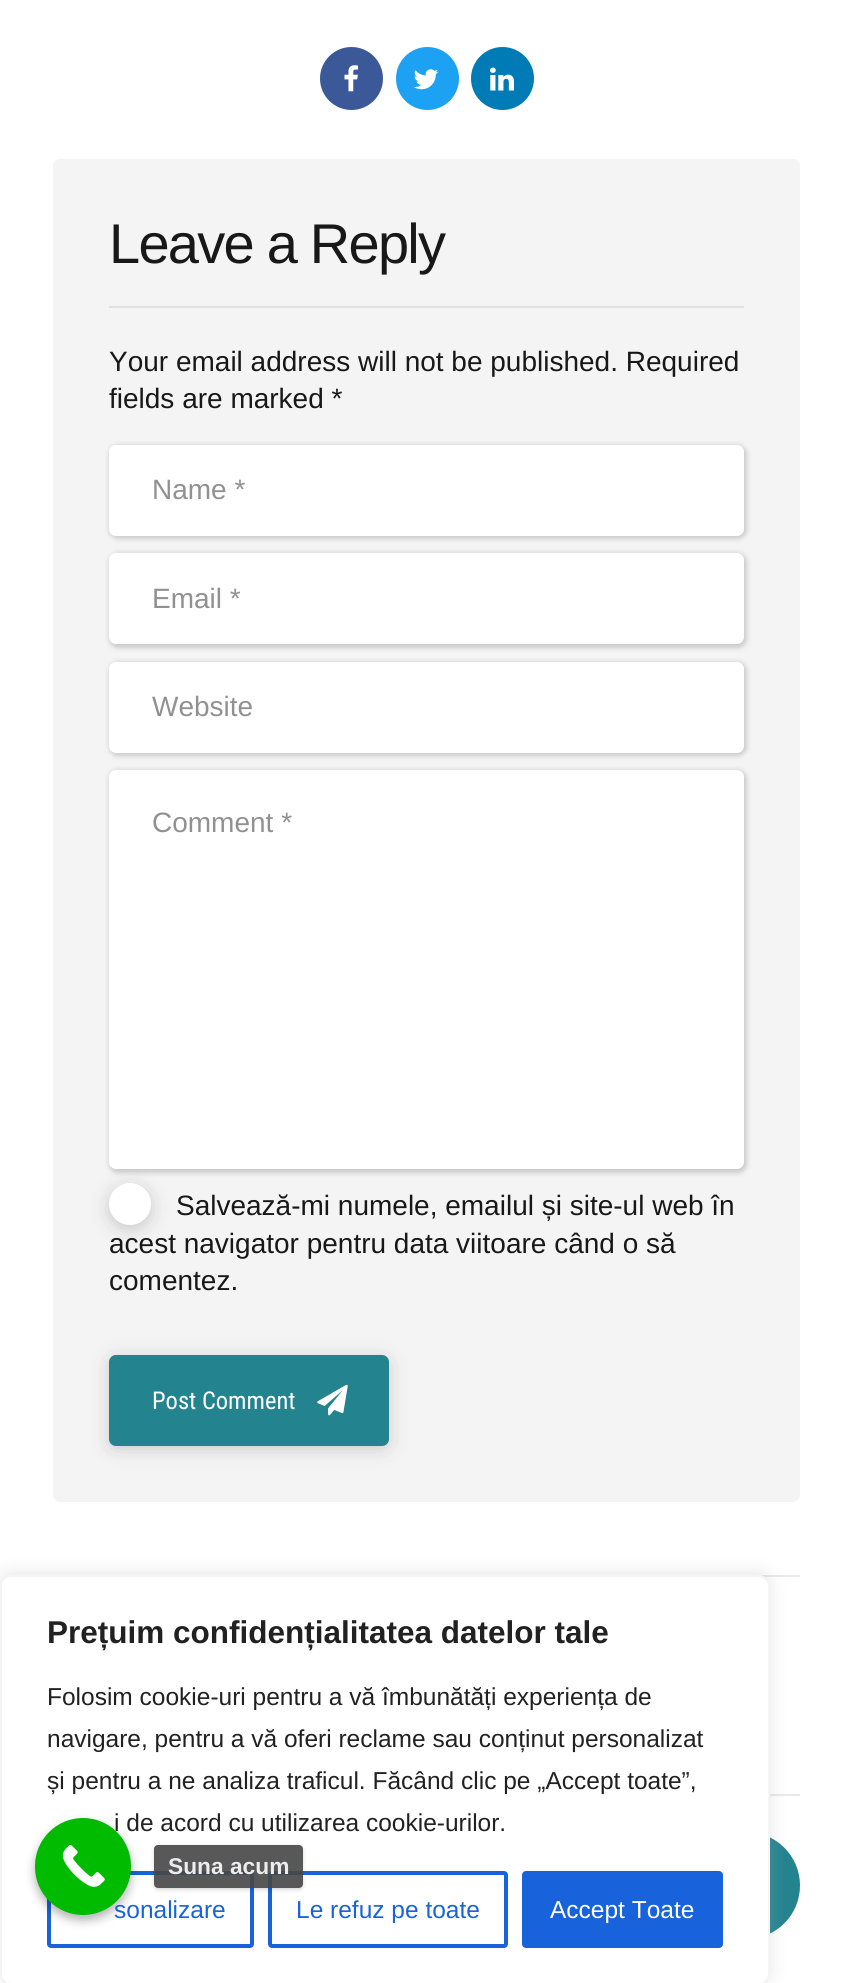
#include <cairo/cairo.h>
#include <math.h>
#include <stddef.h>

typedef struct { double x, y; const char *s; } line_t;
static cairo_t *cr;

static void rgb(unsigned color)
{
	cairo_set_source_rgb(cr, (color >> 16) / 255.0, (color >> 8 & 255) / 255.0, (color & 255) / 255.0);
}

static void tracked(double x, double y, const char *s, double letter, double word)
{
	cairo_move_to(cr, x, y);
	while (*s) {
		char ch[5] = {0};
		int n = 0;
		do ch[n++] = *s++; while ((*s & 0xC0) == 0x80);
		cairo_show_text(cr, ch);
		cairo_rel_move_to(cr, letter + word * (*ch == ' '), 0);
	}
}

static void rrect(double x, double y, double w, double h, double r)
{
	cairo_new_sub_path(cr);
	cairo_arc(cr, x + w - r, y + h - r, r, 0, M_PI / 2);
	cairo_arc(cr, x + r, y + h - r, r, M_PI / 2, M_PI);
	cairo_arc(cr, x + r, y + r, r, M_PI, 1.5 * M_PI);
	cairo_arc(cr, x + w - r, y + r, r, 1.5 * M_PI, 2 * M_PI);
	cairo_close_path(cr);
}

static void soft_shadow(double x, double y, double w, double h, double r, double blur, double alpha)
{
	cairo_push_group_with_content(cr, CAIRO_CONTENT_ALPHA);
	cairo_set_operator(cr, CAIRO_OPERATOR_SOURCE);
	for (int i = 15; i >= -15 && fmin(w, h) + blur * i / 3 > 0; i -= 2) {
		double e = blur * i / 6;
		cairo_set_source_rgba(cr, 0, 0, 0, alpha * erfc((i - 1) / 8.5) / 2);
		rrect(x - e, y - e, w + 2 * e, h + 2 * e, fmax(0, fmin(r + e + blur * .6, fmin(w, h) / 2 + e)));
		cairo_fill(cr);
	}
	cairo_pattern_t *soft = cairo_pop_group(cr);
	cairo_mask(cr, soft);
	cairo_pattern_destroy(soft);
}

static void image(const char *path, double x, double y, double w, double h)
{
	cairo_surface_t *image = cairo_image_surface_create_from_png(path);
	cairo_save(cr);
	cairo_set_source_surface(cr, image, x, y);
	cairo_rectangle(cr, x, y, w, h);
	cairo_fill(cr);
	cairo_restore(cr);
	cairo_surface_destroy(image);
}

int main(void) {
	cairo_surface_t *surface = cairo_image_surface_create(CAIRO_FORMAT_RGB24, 852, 1983);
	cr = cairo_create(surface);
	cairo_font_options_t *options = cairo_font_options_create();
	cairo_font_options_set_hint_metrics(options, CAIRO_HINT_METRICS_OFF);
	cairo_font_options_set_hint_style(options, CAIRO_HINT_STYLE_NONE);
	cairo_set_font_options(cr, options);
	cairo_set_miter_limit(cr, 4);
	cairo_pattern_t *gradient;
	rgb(0xffffff);
	cairo_paint(cr);
	rgb(0x3b5998);
	cairo_arc(cr, 351.5, 78.5, 31.5, 0, 2 * M_PI);
	cairo_fill(cr);
	image("img/1.png", 344, 65, 14, 27);
	rgb(0x1da1f2);
	cairo_arc(cr, 427.5, 78.5, 31.5, 0, 2 * M_PI);
	cairo_fill(cr);
	image("img/2.png", 413, 69, 26, 21);
	rgb(0x007bb5);
	cairo_arc(cr, 502.5, 78.5, 31.5, 0, 2 * M_PI);
	cairo_fill(cr);
	image("img/3.png", 490, 67, 24, 24);
	rgb(0xf4f4f4);
	rrect(53, 159, 747, 1343, 7);
	cairo_fill(cr);
	rgb(0xdfdfdf);
	cairo_rectangle(cr, 109, 306, 635, 2);
	cairo_fill(cr);
	rgb(0x222222);
	soft_shadow(109, 445, 638, 94, 9, 2.5, 0.2);
	rgb(0xffffff);
	rrect(109, 445, 635, 91, 7);
	cairo_fill(cr);
	rgb(0x222222);
	soft_shadow(109, 553, 638, 95, 9, 2.5, 0.2);
	rgb(0xffffff);
	rrect(109, 553, 635, 91, 7);
	cairo_fill(cr);
	rgb(0x222222);
	soft_shadow(109, 662, 638, 94, 9, 2.5, 0.2);
	rgb(0xffffff);
	rrect(109, 662, 635, 91, 7);
	cairo_fill(cr);
	rgb(0x222222);
	soft_shadow(109, 770, 638, 403, 9, 2.5, 0.2);
	rgb(0xffffff);
	rrect(109, 770, 635, 399, 7);
	cairo_fill(cr);
	rgb(0x222222);
	soft_shadow(109, 1187, 42, 42, 21, 9, 0.2);
	rgb(0xffffff);
	cairo_arc(cr, 130, 1204, 21, 0, 2 * M_PI);
	cairo_fill(cr);
	rgb(0x222222);
	soft_shadow(109, 1358, 280, 91, 7, 9, 0.2);
	gradient = cairo_pattern_create_linear(109, 1400, 669, 1400);
	cairo_pattern_add_color_stop_rgba(gradient, 0.51, 0.137, 0.514, 0.561, 1);
	cairo_pattern_add_color_stop_rgba(gradient, 1, 0.047, 0.741, 0.82, 1);
	cairo_set_source(cr, gradient);
	cairo_pattern_destroy(gradient);
	rrect(109, 1355, 280, 91, 7);
	cairo_fill(cr);
	image("img/4.png", 317, 1384, 31, 32);
	rgb(0xe9e9e9);
	cairo_rectangle(cr, 759, 1575, 41, 2);
	cairo_fill(cr);
	cairo_rectangle(cr, 770, 1794, 30, 2);
	cairo_fill(cr);
	rgb(0x23838f);
	cairo_arc(cr, 746.5, 1885.5, 53.5, 0, 2 * M_PI);
	cairo_fill(cr);
	rgb(0xacabab);
	soft_shadow(0, 1573, 770, 410, 11, 9, 0.3);
	rgb(0xffffff);
	rrect(1, 1576, 768, 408, 10);
	cairo_fill_preserve(cr);
	rgb(0xf4f4f4);
	cairo_stroke(cr);
	rrect(49, 1873, 203, 73, 2);
	rgb(0x1863dc);
	cairo_set_line_width(cr, 4);
	cairo_stroke(cr);
	rrect(270, 1873, 236, 73, 2);
	cairo_stroke(cr);
	rrect(524, 1873, 197, 73, 2);
	cairo_fill_preserve(cr);
	cairo_stroke(cr);
	rgb(0x000000);
	soft_shadow(35, 1824, 96, 96, 48, 5, 0.3);
	cairo_save(cr);
	cairo_set_fill_rule(cr, CAIRO_FILL_RULE_EVEN_ODD);
	cairo_new_path(cr);
	cairo_move_to(cr, 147, 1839);
	cairo_line_to(cr, 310, 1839);
	cairo_line_to(cr, 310, 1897);
	cairo_line_to(cr, 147, 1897);
	cairo_close_path(cr);
	cairo_move_to(cr, 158, 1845);
	cairo_line_to(cr, 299, 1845);
	cairo_curve_to(cr, 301, 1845, 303, 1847, 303, 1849);
	cairo_line_to(cr, 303, 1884);
	cairo_curve_to(cr, 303, 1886, 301, 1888, 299, 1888);
	cairo_line_to(cr, 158, 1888);
	cairo_curve_to(cr, 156, 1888, 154, 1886, 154, 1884);
	cairo_line_to(cr, 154, 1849);
	cairo_curve_to(cr, 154, 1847, 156, 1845, 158, 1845);
	cairo_close_path(cr);
	cairo_clip(cr);
	soft_shadow(154, 1846, 149, 44, 4, 2, 0.15);
	cairo_restore(cr);
	cairo_set_source_rgba(cr, 0.275, 0.275, 0.275, 0.9);
	rrect(154, 1845, 149, 43, 4);
	cairo_fill(cr);
	cairo_select_font_face(cr, "Liberation Sans", CAIRO_FONT_SLANT_NORMAL, CAIRO_FONT_WEIGHT_NORMAL);
	cairo_set_font_size(cr, 56);
	rgb(0x181818);
	tracked(109, 263, "Leave a Reply", -1.75, 0);
	cairo_set_font_size(cr, 28);
	cairo_move_to(cr, 109, 371);
	cairo_show_text(cr, "Your email address will not be published. Required");
	cairo_move_to(cr, 109, 408);
	cairo_show_text(cr, "fields are marked *");
	rgb(0x919191);
	{
		static const line_t items[] = {
			{152, 499, "Name *"},
			{152, 608, "Email *"},
			{152, 716, "Website"},
			{152, 832, "Comment *"},
		};
		for (size_t i = 0; i < sizeof items / sizeof *items; i++) {
			cairo_move_to(cr, items[i].x, items[i].y);
			cairo_show_text(cr, items[i].s);
		}
	}
	rgb(0x181818);
	{
		static const line_t items[] = {
			{176, 1215, "Salvează-mi numele, emailul și site-ul web în"},
			{109, 1253, "acest navigator pentru data viitoare când o să"},
			{109, 1290, "comentez."},
		};
		for (size_t i = 0; i < sizeof items / sizeof *items; i++) {
			cairo_move_to(cr, items[i].x, items[i].y);
			cairo_show_text(cr, items[i].s);
		}
	}
	cairo_select_font_face(cr, "Roboto Condensed", CAIRO_FONT_SLANT_NORMAL, CAIRO_FONT_WEIGHT_NORMAL);
	cairo_set_font_size(cr, 24.5);
	rgb(0xffffff);
	cairo_move_to(cr, 152, 1409);
	cairo_show_text(cr, "Post Comment");
	cairo_select_font_face(cr, "Liberation Sans", CAIRO_FONT_SLANT_NORMAL, CAIRO_FONT_WEIGHT_BOLD);
	cairo_set_font_size(cr, 31.5);
	rgb(0x212121);
	cairo_move_to(cr, 47, 1643);
	cairo_show_text(cr, "Prețuim confidențialitatea datelor tale");
	cairo_select_font_face(cr, "Liberation Sans", CAIRO_FONT_SLANT_NORMAL, CAIRO_FONT_WEIGHT_NORMAL);
	cairo_set_font_size(cr, 24.5);
	{
		static const line_t items[] = {
			{47, 1705, "Folosim cookie-uri pentru a vă îmbunătăți experiența de"},
			{47, 1747, "navigare, pentru a vă oferi reclame sau conținut personalizat"},
			{47, 1789, "și pentru a ne analiza traficul. Făcând clic pe „Accept toate”,"},
			{114, 1831, "i de acord cu utilizarea cookie-urilor."},
		};
		for (size_t i = 0; i < sizeof items / sizeof *items; i++) {
			cairo_move_to(cr, items[i].x, items[i].y);
			cairo_show_text(cr, items[i].s);
		}
	}
	rgb(0x1863dc);
	cairo_move_to(cr, 114, 1918);
	cairo_show_text(cr, "sonalizare");
	cairo_move_to(cr, 296, 1918);
	cairo_show_text(cr, "Le refuz pe toate");
	rgb(0xffffff);
	cairo_move_to(cr, 550, 1918);
	cairo_show_text(cr, "Accept Toate");
	rgb(0x00bb00);
	rrect(35, 1818, 96, 97, 48);
	cairo_fill(cr);
	image("img/5.png", 62, 1845, 43, 42);
	cairo_select_font_face(cr, "Liberation Sans", CAIRO_FONT_SLANT_NORMAL, CAIRO_FONT_WEIGHT_BOLD);
	cairo_set_font_size(cr, 22.75);
	rgb(0xececec);
	cairo_move_to(cr, 168, 1874);
	cairo_show_text(cr, "Suna acum");
	cairo_surface_write_to_png(surface, "page.png");
	cairo_font_options_destroy(options);
	cairo_destroy(cr);
	cairo_surface_destroy(surface);
	return 0;
}
